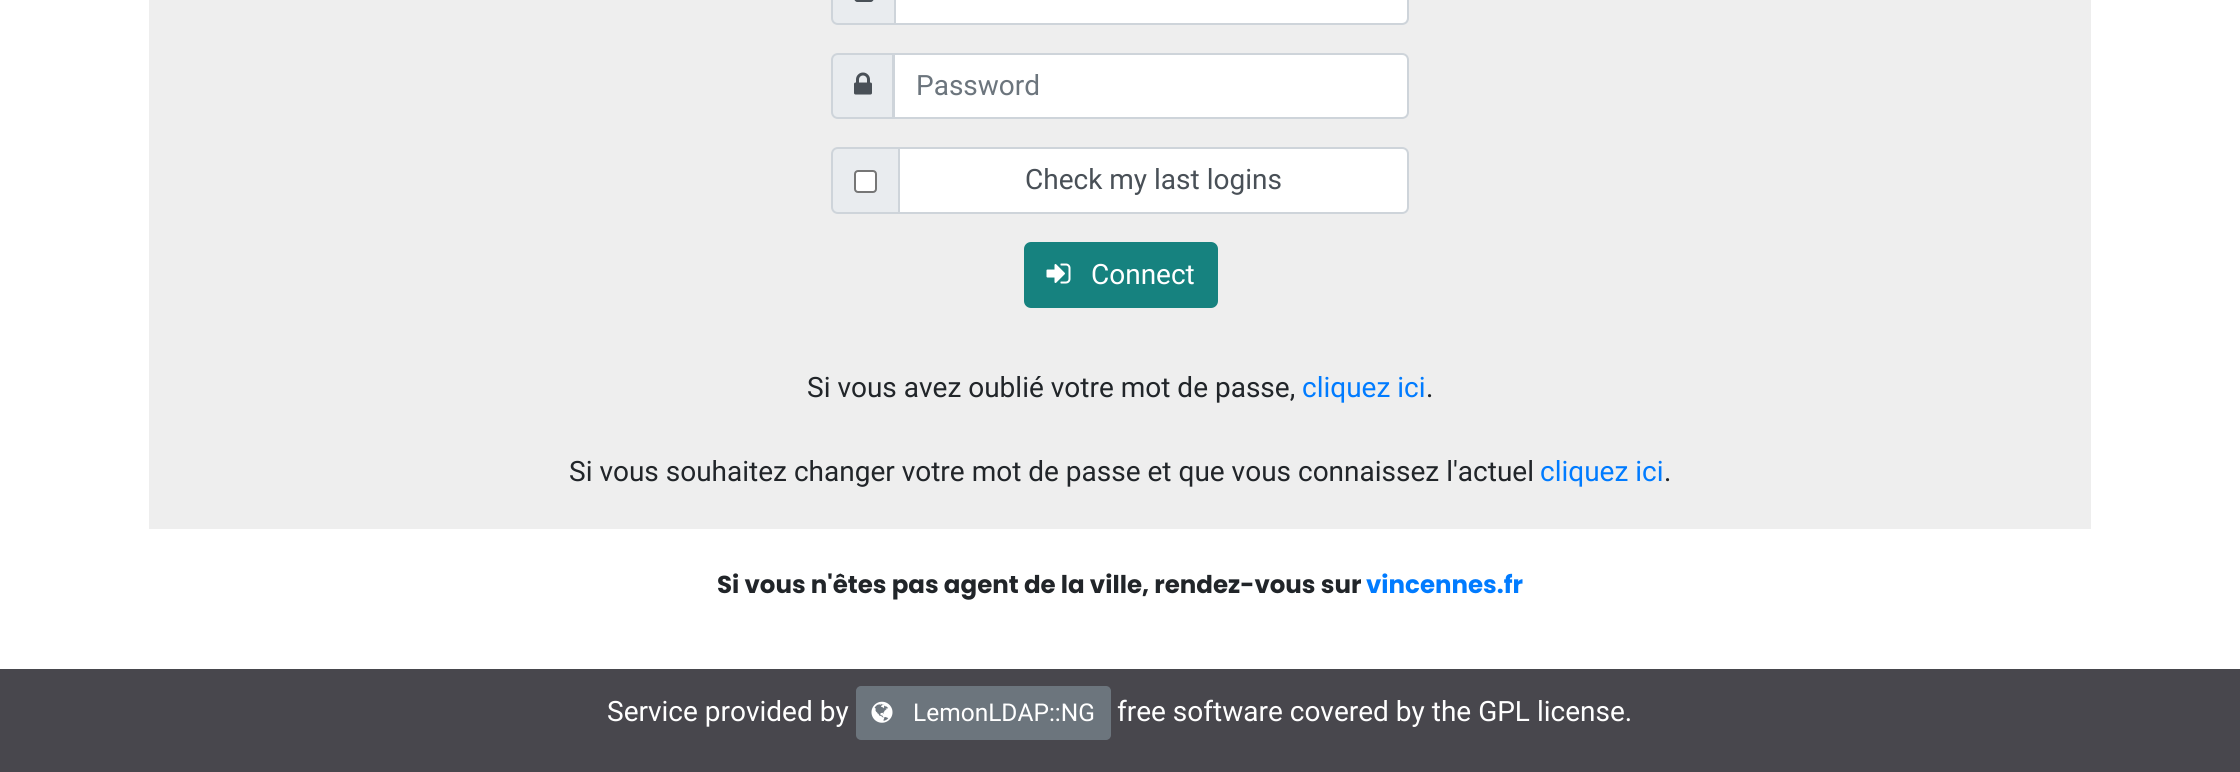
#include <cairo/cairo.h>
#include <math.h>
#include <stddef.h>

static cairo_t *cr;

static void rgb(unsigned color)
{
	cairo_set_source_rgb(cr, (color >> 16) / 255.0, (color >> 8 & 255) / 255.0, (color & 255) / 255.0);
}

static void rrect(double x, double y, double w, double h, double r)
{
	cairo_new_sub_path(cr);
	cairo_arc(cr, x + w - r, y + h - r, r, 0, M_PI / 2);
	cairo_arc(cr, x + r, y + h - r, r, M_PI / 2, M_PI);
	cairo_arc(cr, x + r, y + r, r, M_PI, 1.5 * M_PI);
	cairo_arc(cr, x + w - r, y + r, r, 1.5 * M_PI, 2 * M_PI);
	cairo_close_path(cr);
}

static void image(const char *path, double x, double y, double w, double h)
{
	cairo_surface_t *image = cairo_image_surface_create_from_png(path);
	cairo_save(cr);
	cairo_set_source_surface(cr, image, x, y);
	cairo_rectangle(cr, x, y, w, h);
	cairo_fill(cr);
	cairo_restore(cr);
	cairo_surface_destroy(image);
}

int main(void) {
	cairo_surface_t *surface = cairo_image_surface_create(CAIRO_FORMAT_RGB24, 2240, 772);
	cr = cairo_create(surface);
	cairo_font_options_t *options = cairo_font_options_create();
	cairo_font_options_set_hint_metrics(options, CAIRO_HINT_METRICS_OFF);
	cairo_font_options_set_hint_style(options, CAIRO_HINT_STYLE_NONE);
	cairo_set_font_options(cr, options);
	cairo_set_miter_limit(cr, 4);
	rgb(0xffffff);
	cairo_paint(cr);
	rgb(0xeeeeee);
	cairo_rectangle(cr, 149, 0, 1942, 529);
	cairo_fill(cr);
	rgb(0xe9ecef);
	cairo_new_path(cr);
	cairo_move_to(cr, 838, -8);
	cairo_line_to(cr, 895, -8);
	cairo_line_to(cr, 895, 24);
	cairo_line_to(cr, 838, 24);
	cairo_curve_to(cr, 834.5, 24, 832, 21.5, 832, 18);
	cairo_line_to(cr, 832, -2);
	cairo_curve_to(cr, 832, -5.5, 834.5, -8, 838, -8);
	cairo_close_path(cr);
	cairo_fill_preserve(cr);
	rgb(0xced4da);
	cairo_stroke(cr);
	image("img/1.png", 854, 0, 20, 2);
	rgb(0xffffff);
	cairo_new_path(cr);
	cairo_move_to(cr, 896, -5);
	cairo_line_to(cr, 1402, -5);
	cairo_curve_to(cr, 1405, -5, 1407, -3, 1407, 0);
	cairo_line_to(cr, 1407, 18);
	cairo_curve_to(cr, 1407, 21, 1405, 23, 1402, 23);
	cairo_line_to(cr, 896, 23);
	cairo_close_path(cr);
	cairo_fill(cr);
	cairo_new_path(cr);
	cairo_move_to(cr, 895, -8);
	cairo_line_to(cr, 1402, -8);
	cairo_curve_to(cr, 1405.5, -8, 1408, -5.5, 1408, -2);
	cairo_line_to(cr, 1408, 18);
	cairo_curve_to(cr, 1408, 21.5, 1405.5, 24, 1402, 24);
	cairo_line_to(cr, 895, 24);
	cairo_close_path(cr);
	rgb(0xced4da);
	cairo_stroke(cr);
	rgb(0xe9ecef);
	cairo_new_path(cr);
	cairo_move_to(cr, 838, 54);
	cairo_line_to(cr, 893, 54);
	cairo_line_to(cr, 893, 118);
	cairo_line_to(cr, 838, 118);
	cairo_curve_to(cr, 834.5, 118, 832, 115.5, 832, 112);
	cairo_line_to(cr, 832, 60);
	cairo_curve_to(cr, 832, 56.5, 834.5, 54, 838, 54);
	cairo_close_path(cr);
	cairo_fill_preserve(cr);
	rgb(0xced4da);
	cairo_stroke(cr);
	image("img/2.png", 854, 72, 18, 23);
	rgb(0xffffff);
	cairo_new_path(cr);
	cairo_move_to(cr, 894, 54);
	cairo_line_to(cr, 1402, 54);
	cairo_curve_to(cr, 1405.5, 54, 1408, 56.5, 1408, 60);
	cairo_line_to(cr, 1408, 112);
	cairo_curve_to(cr, 1408, 115.5, 1405.5, 118, 1402, 118);
	cairo_line_to(cr, 894, 118);
	cairo_close_path(cr);
	cairo_fill_preserve(cr);
	rgb(0xced4da);
	cairo_stroke(cr);
	rgb(0xe9ecef);
	cairo_new_path(cr);
	cairo_move_to(cr, 838, 148);
	cairo_line_to(cr, 899, 148);
	cairo_line_to(cr, 899, 213);
	cairo_line_to(cr, 838, 213);
	cairo_curve_to(cr, 834.5, 213, 832, 210.5, 832, 207);
	cairo_line_to(cr, 832, 154);
	cairo_curve_to(cr, 832, 150.5, 834.5, 148, 838, 148);
	cairo_close_path(cr);
	cairo_fill_preserve(cr);
	rgb(0xced4da);
	cairo_stroke(cr);
	rgb(0xffffff);
	rrect(855, 171, 21, 21, 3);
	cairo_fill_preserve(cr);
	rgb(0x767676);
	cairo_stroke(cr);
	rgb(0xffffff);
	cairo_new_path(cr);
	cairo_move_to(cr, 899, 148);
	cairo_line_to(cr, 1402, 148);
	cairo_curve_to(cr, 1405.5, 148, 1408, 150.5, 1408, 154);
	cairo_line_to(cr, 1408, 207);
	cairo_curve_to(cr, 1408, 210.5, 1405.5, 213, 1402, 213);
	cairo_line_to(cr, 899, 213);
	cairo_close_path(cr);
	cairo_fill_preserve(cr);
	rgb(0xced4da);
	cairo_stroke(cr);
	rgb(0x16827f);
	rrect(1025, 243, 192, 64, 6);
	cairo_fill_preserve(cr);
	cairo_stroke(cr);
	image("img/3.png", 1046, 263, 25, 21);
	rgb(0x48474d);
	cairo_rectangle(cr, 0, 669, 2240, 103);
	cairo_fill(cr);
	rgb(0x6c757d);
	rrect(857, 687, 253, 52, 4);
	cairo_fill_preserve(cr);
	cairo_stroke(cr);
	image("img/4.png", 871, 701, 22, 22);
	cairo_select_font_face(cr, "Roboto", CAIRO_FONT_SLANT_NORMAL, CAIRO_FONT_WEIGHT_NORMAL);
	cairo_set_font_size(cr, 28);
	cairo_move_to(cr, 916, 95);
	cairo_show_text(cr, "Password");
	rgb(0x495057);
	cairo_move_to(cr, 1025, 189);
	cairo_show_text(cr, "Check my last logins");
	rgb(0xffffff);
	cairo_move_to(cr, 1091, 284);
	cairo_show_text(cr, "Connect");
	rgb(0x212529);
	cairo_move_to(cr, 807, 397);
	cairo_show_text(cr, "Si vous avez oublié votre mot de passe,");
	rgb(0x007bff);
	cairo_move_to(cr, 1302, 397);
	cairo_show_text(cr, "cliquez ici");
	rgb(0x212529);
	cairo_move_to(cr, 1426, 397);
	cairo_show_text(cr, ".");
	cairo_move_to(cr, 569, 481);
	cairo_show_text(cr, "Si vous souhaitez changer votre mot de passe et que vous connaissez l'actuel");
	rgb(0x007bff);
	cairo_move_to(cr, 1540, 481);
	cairo_show_text(cr, "cliquez ici");
	rgb(0x212529);
	cairo_move_to(cr, 1664, 481);
	cairo_show_text(cr, ".");
	cairo_select_font_face(cr, "Poppins", CAIRO_FONT_SLANT_NORMAL, CAIRO_FONT_WEIGHT_BOLD);
	cairo_set_font_size(cr, 24.5);
	cairo_move_to(cr, 717, 593);
	cairo_show_text(cr, "Si vous n'êtes pas agent de la ville, rendez-vous sur");
	rgb(0x007bff);
	cairo_move_to(cr, 1366, 593);
	cairo_show_text(cr, "vincennes.fr");
	cairo_select_font_face(cr, "Roboto", CAIRO_FONT_SLANT_NORMAL, CAIRO_FONT_WEIGHT_NORMAL);
	cairo_set_font_size(cr, 28);
	rgb(0xffffff);
	cairo_move_to(cr, 607, 721);
	cairo_show_text(cr, "Service provided by");
	cairo_set_font_size(cr, 24.5);
	cairo_move_to(cr, 913, 721);
	cairo_show_text(cr, "LemonLDAP::NG");
	cairo_set_font_size(cr, 28);
	cairo_move_to(cr, 1117, 721);
	cairo_show_text(cr, "free software covered by the GPL license.");
	cairo_surface_write_to_png(surface, "page.png");
	cairo_font_options_destroy(options);
	cairo_destroy(cr);
	cairo_surface_destroy(surface);
	return 0;
}
